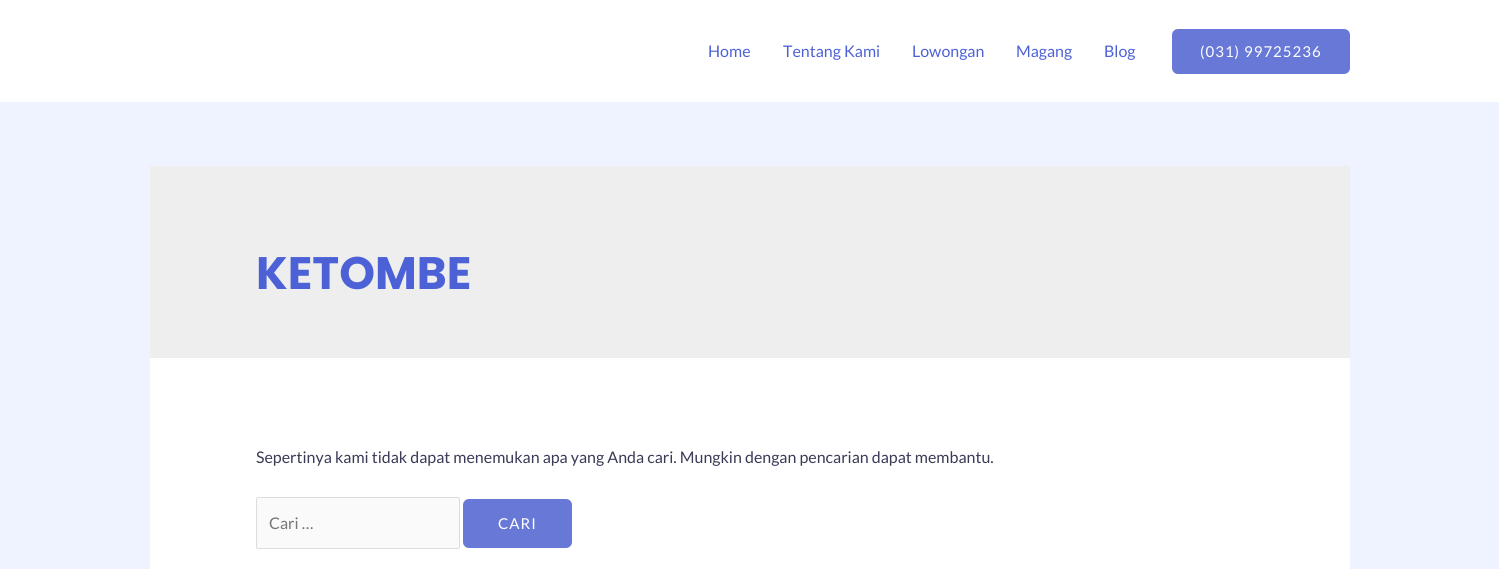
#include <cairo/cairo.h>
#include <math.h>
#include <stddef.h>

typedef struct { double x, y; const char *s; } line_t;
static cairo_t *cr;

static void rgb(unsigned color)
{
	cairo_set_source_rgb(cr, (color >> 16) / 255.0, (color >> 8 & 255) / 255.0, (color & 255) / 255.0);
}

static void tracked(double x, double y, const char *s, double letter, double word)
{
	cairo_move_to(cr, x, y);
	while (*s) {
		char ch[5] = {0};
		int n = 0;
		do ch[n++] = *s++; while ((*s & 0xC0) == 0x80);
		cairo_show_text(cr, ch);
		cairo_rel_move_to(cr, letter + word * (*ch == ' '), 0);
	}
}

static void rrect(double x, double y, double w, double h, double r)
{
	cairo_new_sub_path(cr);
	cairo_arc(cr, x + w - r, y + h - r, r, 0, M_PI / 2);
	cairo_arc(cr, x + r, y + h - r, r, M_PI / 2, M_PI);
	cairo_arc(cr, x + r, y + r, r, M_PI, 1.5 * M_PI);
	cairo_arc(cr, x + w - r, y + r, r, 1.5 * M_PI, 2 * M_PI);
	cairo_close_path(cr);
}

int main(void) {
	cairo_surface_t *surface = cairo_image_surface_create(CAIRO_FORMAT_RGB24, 1499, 569);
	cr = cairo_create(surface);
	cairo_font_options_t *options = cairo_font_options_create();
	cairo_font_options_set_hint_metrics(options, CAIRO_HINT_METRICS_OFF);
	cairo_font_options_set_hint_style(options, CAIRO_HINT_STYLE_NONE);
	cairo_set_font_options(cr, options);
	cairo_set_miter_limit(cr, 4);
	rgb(0xeff2ff);
	cairo_paint(cr);
	rgb(0xffffff);
	cairo_rectangle(cr, 0, 0, 1499, 102);
	cairo_fill(cr);
	rgb(0x6878d6);
	rrect(1172, 29, 178, 45, 6);
	cairo_fill(cr);
	rgb(0xeeeeee);
	cairo_rectangle(cr, 150, 166, 1200, 192);
	cairo_fill(cr);
	rgb(0xffffff);
	cairo_rectangle(cr, 150, 358, 1200, 211);
	cairo_fill(cr);
	rgb(0xfafafa);
	rrect(256.5, 497.5, 203, 51, 1.5);
	cairo_fill_preserve(cr);
	rgb(0xdddddd);
	cairo_set_line_width(cr, 1);
	cairo_stroke(cr);
	rgb(0x6878d6);
	rrect(463, 499, 109, 49, 6);
	cairo_fill(cr);
	cairo_select_font_face(cr, "Lato", CAIRO_FONT_SLANT_NORMAL, CAIRO_FONT_WEIGHT_NORMAL);
	cairo_set_font_size(cr, 16);
	rgb(0x4d61d6);
	{
		static const line_t items[] = {
			{708, 57, "Home"},
			{783, 57, "Tentang Kami"},
			{912, 57, "Lowongan"},
			{1016, 57, "Magang"},
			{1104, 57, "Blog"},
		};
		for (size_t i = 0; i < sizeof items / sizeof *items; i++) {
			cairo_move_to(cr, items[i].x, items[i].y);
			cairo_show_text(cr, items[i].s);
		}
	}
	cairo_set_font_size(cr, 15);
	rgb(0xffffff);
	tracked(1200, 57, "(031) 99725236", 1, 0);
	cairo_select_font_face(cr, "Poppins", CAIRO_FONT_SLANT_NORMAL, CAIRO_FONT_WEIGHT_BOLD);
	cairo_set_font_size(cr, 45.5);
	rgb(0x4d61d6);
	cairo_move_to(cr, 256, 289);
	cairo_show_text(cr, "KETOMBE");
	cairo_select_font_face(cr, "Lato", CAIRO_FONT_SLANT_NORMAL, CAIRO_FONT_WEIGHT_NORMAL);
	cairo_set_font_size(cr, 16);
	rgb(0x393a56);
	cairo_move_to(cr, 256, 463);
	cairo_show_text(cr, "Sepertinya kami tidak dapat menemukan apa yang Anda cari. Mungkin dengan pencarian dapat membantu.");
	rgb(0x757575);
	cairo_move_to(cr, 269, 529);
	cairo_show_text(cr, "Cari …");
	cairo_set_font_size(cr, 15);
	rgb(0xffffff);
	tracked(498, 529, "CARI", 1, 0);
	cairo_surface_write_to_png(surface, "page.png");
	cairo_font_options_destroy(options);
	cairo_destroy(cr);
	cairo_surface_destroy(surface);
	return 0;
}
